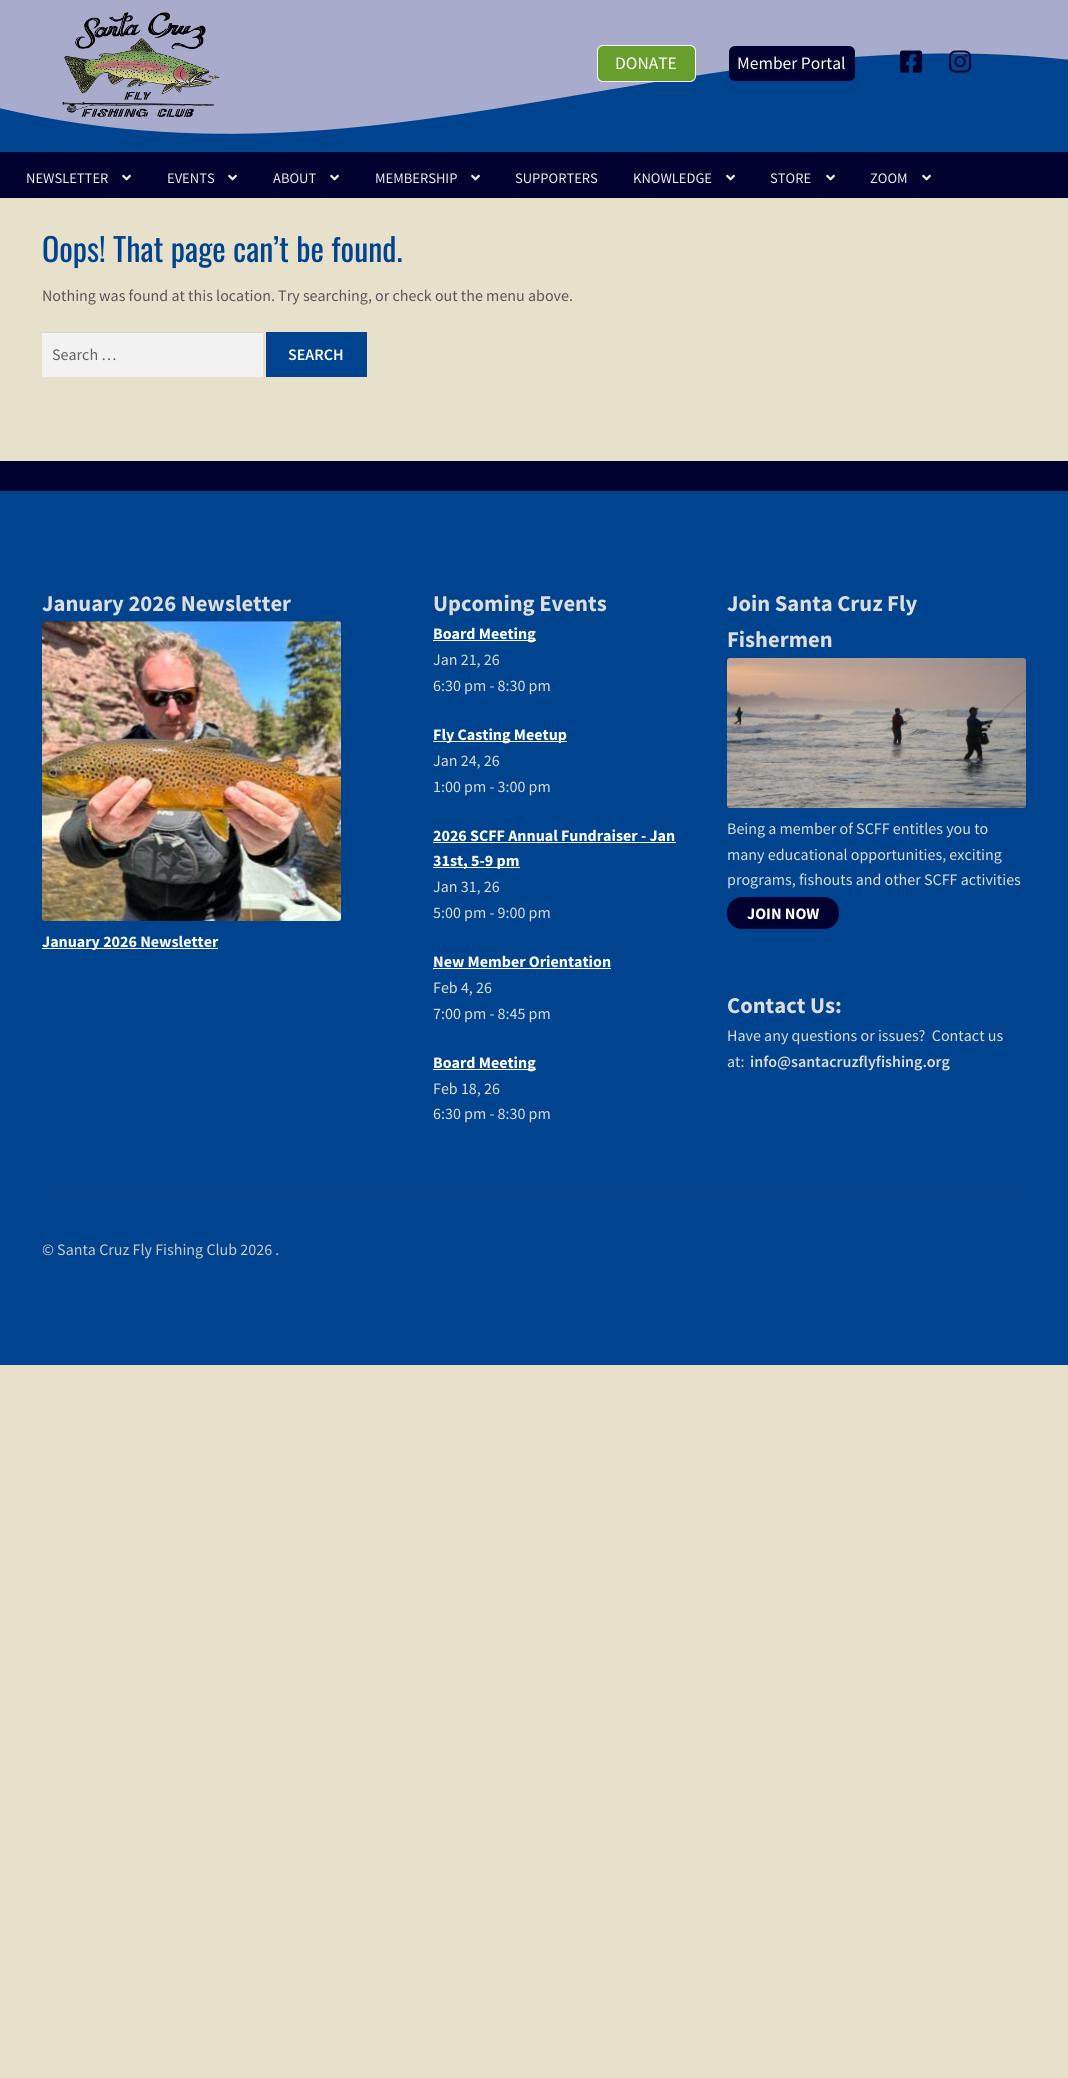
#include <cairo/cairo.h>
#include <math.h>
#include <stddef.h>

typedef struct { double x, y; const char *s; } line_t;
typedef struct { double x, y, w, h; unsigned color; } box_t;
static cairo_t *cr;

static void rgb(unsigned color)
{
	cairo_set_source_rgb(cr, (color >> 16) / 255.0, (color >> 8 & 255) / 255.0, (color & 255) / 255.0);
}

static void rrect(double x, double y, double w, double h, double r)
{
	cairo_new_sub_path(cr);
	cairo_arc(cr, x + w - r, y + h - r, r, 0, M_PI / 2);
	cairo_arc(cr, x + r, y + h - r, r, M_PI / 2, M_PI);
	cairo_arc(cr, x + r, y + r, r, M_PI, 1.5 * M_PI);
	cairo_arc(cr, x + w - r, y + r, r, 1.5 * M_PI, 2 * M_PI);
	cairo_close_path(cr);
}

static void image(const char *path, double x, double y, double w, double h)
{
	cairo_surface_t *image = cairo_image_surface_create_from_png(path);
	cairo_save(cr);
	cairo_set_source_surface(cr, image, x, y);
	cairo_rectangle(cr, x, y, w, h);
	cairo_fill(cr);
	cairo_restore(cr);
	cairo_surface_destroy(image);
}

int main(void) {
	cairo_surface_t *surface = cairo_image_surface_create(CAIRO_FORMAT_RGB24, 1068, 2078);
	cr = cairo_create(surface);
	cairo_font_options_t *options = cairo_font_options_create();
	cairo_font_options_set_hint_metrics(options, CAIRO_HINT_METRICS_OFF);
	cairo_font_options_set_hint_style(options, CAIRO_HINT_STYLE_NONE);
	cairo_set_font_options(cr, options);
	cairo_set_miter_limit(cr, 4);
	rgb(0xe7e0cb);
	cairo_paint(cr);
	rgb(0xa8abcc);
	cairo_rectangle(cr, 0, 0, 1068, 134);
	cairo_fill(cr);
	cairo_save(cr);
	cairo_rectangle(cr, 0, 0, 1068, 178);
	cairo_clip(cr);
	cairo_new_path(cr);
	cairo_move_to(cr, -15.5, 174);
	cairo_curve_to(cr, 455.5, 283, 787, 20, 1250, 166.5);
	rgb(0x00448f);
	cairo_set_line_width(cr, 134.9);
	cairo_set_line_cap(cr, CAIRO_LINE_CAP_ROUND);
	cairo_stroke(cr);
	cairo_restore(cr);
	image("img/1.png", 62, 12, 158, 105);
	rgb(0x689f2c);
	rrect(597.5, 45.5, 98, 36, 5.5);
	cairo_fill_preserve(cr);
	rgb(0xffffff);
	cairo_set_line_width(cr, 1);
	cairo_stroke(cr);
	rgb(0x00012f);
	rrect(729, 46, 126, 35, 6);
	cairo_fill(cr);
	image("img/2.png", 900, 50, 23, 23);
	image("img/3.png", 949, 50, 23, 23);
	cairo_rectangle(cr, 0, 152, 1068, 46);
	cairo_fill(cr);
	image("img/4.png", 122, 174, 9, 7);
	image("img/4.png", 228, 174, 9, 7);
	image("img/4.png", 330, 174, 9, 7);
	image("img/4.png", 471, 174, 9, 7);
	image("img/4.png", 726, 174, 9, 7);
	image("img/4.png", 826, 174, 9, 7);
	image("img/4.png", 922, 174, 9, 7);
	{
		static const box_t items[] = {
			{42, 333, 221, 44, 0xf2f2f2},
			{42, 332, 221, 1, 0xd4d4d4},
			{266, 332, 101, 45, 0x00448f},
			{0, 491, 1068, 874, 0x00448f},
			{0, 461, 1068, 30, 0x00012f},
			{42, 1195, 984, 1, 0x004188},
		};
		for (size_t i = 0; i < sizeof items / sizeof *items; i++) {
			rgb(items[i].color);
			cairo_rectangle(cr, items[i].x, items[i].y, items[i].w, items[i].h);
			cairo_fill(cr);
		}
	}
	image("img/5.png", 42, 621, 299, 300);
	{
		static const box_t items[] = {
			{42, 948, 176, 1, 0xffffff},
			{433, 640, 103, 1, 0xffffff},
			{433, 741, 134, 1, 0xffffff},
			{433, 842, 243, 1, 0xffffff},
			{433, 867, 87, 1, 0xffffff},
			{433, 968, 178, 1, 0xffffff},
			{433, 1069, 103, 1, 0xffffff},
		};
		for (size_t i = 0; i < sizeof items / sizeof *items; i++) {
			rgb(items[i].color);
			cairo_rectangle(cr, items[i].x, items[i].y, items[i].w, items[i].h);
			cairo_fill(cr);
		}
	}
	image("img/6.png", 727, 658, 299, 150);
	rgb(0x00012f);
	rrect(727, 897, 112, 32, 15);
	cairo_fill(cr);
	cairo_select_font_face(cr, "Source Sans Pro", CAIRO_FONT_SLANT_NORMAL, CAIRO_FONT_WEIGHT_NORMAL);
	cairo_set_font_size(cr, 17.5);
	rgb(0xffffff);
	cairo_move_to(cr, 615, 69);
	cairo_show_text(cr, "DONATE");
	cairo_move_to(cr, 737, 69);
	cairo_show_text(cr, "Member Portal");
	cairo_set_font_size(cr, 14.5);
	rgb(0xeeeeee);
	{
		static const line_t items[] = {
			{26, 183, "NEWSLETTER"},
			{167, 183, "EVENTS"},
			{273, 183, "ABOUT"},
			{375, 183, "MEMBERSHIP"},
			{515, 183, "SUPPORTERS"},
			{633, 183, "KNOWLEDGE"},
			{770, 183, "STORE"},
			{870, 183, "ZOOM"},
		};
		for (size_t i = 0; i < sizeof items / sizeof *items; i++) {
			cairo_move_to(cr, items[i].x, items[i].y);
			cairo_show_text(cr, items[i].s);
		}
	}
	cairo_select_font_face(cr, "Oswald", CAIRO_FONT_SLANT_NORMAL, CAIRO_FONT_WEIGHT_NORMAL);
	cairo_set_font_size(cr, 32);
	rgb(0x00448f);
	cairo_move_to(cr, 42, 262);
	cairo_show_text(cr, "Oops! That page can’t be found.");
	cairo_select_font_face(cr, "Source Sans Pro", CAIRO_FONT_SLANT_NORMAL, CAIRO_FONT_WEIGHT_NORMAL);
	cairo_set_font_size(cr, 16);
	rgb(0x5b5758);
	cairo_move_to(cr, 42, 301);
	cairo_show_text(cr, "Nothing was found at this location. Try searching, or check out the menu above.");
	rgb(0x616161);
	cairo_move_to(cr, 52, 360);
	cairo_show_text(cr, "Search …");
	cairo_select_font_face(cr, "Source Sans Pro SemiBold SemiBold", CAIRO_FONT_SLANT_NORMAL, CAIRO_FONT_WEIGHT_NORMAL);
	rgb(0xffffff);
	cairo_move_to(cr, 288, 360);
	cairo_show_text(cr, "SEARCH");
	cairo_select_font_face(cr, "Source Sans Pro", CAIRO_FONT_SLANT_NORMAL, CAIRO_FONT_WEIGHT_BOLD);
	cairo_set_font_size(cr, 22.6);
	rgb(0xdddddd);
	cairo_move_to(cr, 42, 611);
	cairo_show_text(cr, "January 2026 Newsletter");
	cairo_set_font_size(cr, 16);
	rgb(0xffffff);
	cairo_move_to(cr, 42, 947);
	cairo_show_text(cr, "January 2026 Newsletter");
	cairo_set_font_size(cr, 22.6);
	rgb(0xdddddd);
	cairo_move_to(cr, 433, 611);
	cairo_show_text(cr, "Upcoming Events");
	cairo_set_font_size(cr, 16);
	rgb(0xffffff);
	cairo_move_to(cr, 433, 639);
	cairo_show_text(cr, "Board Meeting");
	cairo_select_font_face(cr, "Source Sans Pro", CAIRO_FONT_SLANT_NORMAL, CAIRO_FONT_WEIGHT_NORMAL);
	rgb(0xdddddd);
	cairo_move_to(cr, 433, 665);
	cairo_show_text(cr, "Jan 21, 26");
	cairo_move_to(cr, 433, 691);
	cairo_show_text(cr, "6:30 pm - 8:30 pm");
	cairo_select_font_face(cr, "Source Sans Pro", CAIRO_FONT_SLANT_NORMAL, CAIRO_FONT_WEIGHT_BOLD);
	rgb(0xffffff);
	cairo_move_to(cr, 433, 740);
	cairo_show_text(cr, "Fly Casting Meetup");
	cairo_select_font_face(cr, "Source Sans Pro", CAIRO_FONT_SLANT_NORMAL, CAIRO_FONT_WEIGHT_NORMAL);
	rgb(0xdddddd);
	cairo_move_to(cr, 433, 766);
	cairo_show_text(cr, "Jan 24, 26");
	cairo_move_to(cr, 433, 792);
	cairo_show_text(cr, "1:00 pm - 3:00 pm");
	cairo_select_font_face(cr, "Source Sans Pro", CAIRO_FONT_SLANT_NORMAL, CAIRO_FONT_WEIGHT_BOLD);
	rgb(0xffffff);
	cairo_move_to(cr, 433, 841);
	cairo_show_text(cr, "2026 SCFF Annual Fundraiser - Jan");
	cairo_move_to(cr, 433, 866);
	cairo_show_text(cr, "31st, 5-9 pm");
	cairo_select_font_face(cr, "Source Sans Pro", CAIRO_FONT_SLANT_NORMAL, CAIRO_FONT_WEIGHT_NORMAL);
	rgb(0xdddddd);
	cairo_move_to(cr, 433, 892);
	cairo_show_text(cr, "Jan 31, 26");
	cairo_move_to(cr, 433, 918);
	cairo_show_text(cr, "5:00 pm - 9:00 pm");
	cairo_select_font_face(cr, "Source Sans Pro", CAIRO_FONT_SLANT_NORMAL, CAIRO_FONT_WEIGHT_BOLD);
	rgb(0xffffff);
	cairo_move_to(cr, 433, 967);
	cairo_show_text(cr, "New Member Orientation");
	cairo_select_font_face(cr, "Source Sans Pro", CAIRO_FONT_SLANT_NORMAL, CAIRO_FONT_WEIGHT_NORMAL);
	rgb(0xdddddd);
	cairo_move_to(cr, 433, 993);
	cairo_show_text(cr, "Feb 4, 26");
	cairo_move_to(cr, 433, 1019);
	cairo_show_text(cr, "7:00 pm - 8:45 pm");
	cairo_select_font_face(cr, "Source Sans Pro", CAIRO_FONT_SLANT_NORMAL, CAIRO_FONT_WEIGHT_BOLD);
	rgb(0xffffff);
	cairo_move_to(cr, 433, 1068);
	cairo_show_text(cr, "Board Meeting");
	cairo_select_font_face(cr, "Source Sans Pro", CAIRO_FONT_SLANT_NORMAL, CAIRO_FONT_WEIGHT_NORMAL);
	rgb(0xdddddd);
	cairo_move_to(cr, 433, 1094);
	cairo_show_text(cr, "Feb 18, 26");
	cairo_move_to(cr, 433, 1119);
	cairo_show_text(cr, "6:30 pm - 8:30 pm");
	cairo_select_font_face(cr, "Source Sans Pro", CAIRO_FONT_SLANT_NORMAL, CAIRO_FONT_WEIGHT_BOLD);
	cairo_set_font_size(cr, 22.6);
	cairo_move_to(cr, 727, 611);
	cairo_show_text(cr, "Join Santa Cruz Fly");
	cairo_move_to(cr, 727, 647);
	cairo_show_text(cr, "Fishermen");
	cairo_select_font_face(cr, "Source Sans Pro", CAIRO_FONT_SLANT_NORMAL, CAIRO_FONT_WEIGHT_NORMAL);
	cairo_set_font_size(cr, 16);
	{
		static const line_t items[] = {
			{727, 834, "Being a member of SCFF entitles you to"},
			{727, 860, "many educational opportunities, exciting"},
			{727, 885, "programs, fishouts and other SCFF activities"},
		};
		for (size_t i = 0; i < sizeof items / sizeof *items; i++) {
			cairo_move_to(cr, items[i].x, items[i].y);
			cairo_show_text(cr, items[i].s);
		}
	}
	cairo_select_font_face(cr, "Source Sans Pro", CAIRO_FONT_SLANT_NORMAL, CAIRO_FONT_WEIGHT_BOLD);
	rgb(0xffffff);
	cairo_move_to(cr, 747, 919);
	cairo_show_text(cr, "JOIN NOW");
	cairo_set_font_size(cr, 22.6);
	rgb(0xdddddd);
	cairo_move_to(cr, 727, 1013);
	cairo_show_text(cr, "Contact Us:");
	cairo_select_font_face(cr, "Source Sans Pro", CAIRO_FONT_SLANT_NORMAL, CAIRO_FONT_WEIGHT_NORMAL);
	cairo_set_font_size(cr, 16);
	cairo_move_to(cr, 727, 1041);
	cairo_show_text(cr, "Have any questions or issues?  Contact us");
	cairo_move_to(cr, 727, 1067);
	cairo_show_text(cr, "at:");
	cairo_select_font_face(cr, "Source Sans Pro SemiBold SemiBold", CAIRO_FONT_SLANT_NORMAL, CAIRO_FONT_WEIGHT_NORMAL);
	cairo_move_to(cr, 750, 1067);
	cairo_show_text(cr, "info@santacruzflyfishing.org");
	cairo_select_font_face(cr, "Source Sans Pro", CAIRO_FONT_SLANT_NORMAL, CAIRO_FONT_WEIGHT_NORMAL);
	rgb(0xcccccc);
	cairo_move_to(cr, 42, 1255);
	cairo_show_text(cr, "© Santa Cruz Fly Fishing Club 2026 .");
	cairo_surface_write_to_png(surface, "page.png");
	cairo_font_options_destroy(options);
	cairo_destroy(cr);
	cairo_surface_destroy(surface);
	return 0;
}
